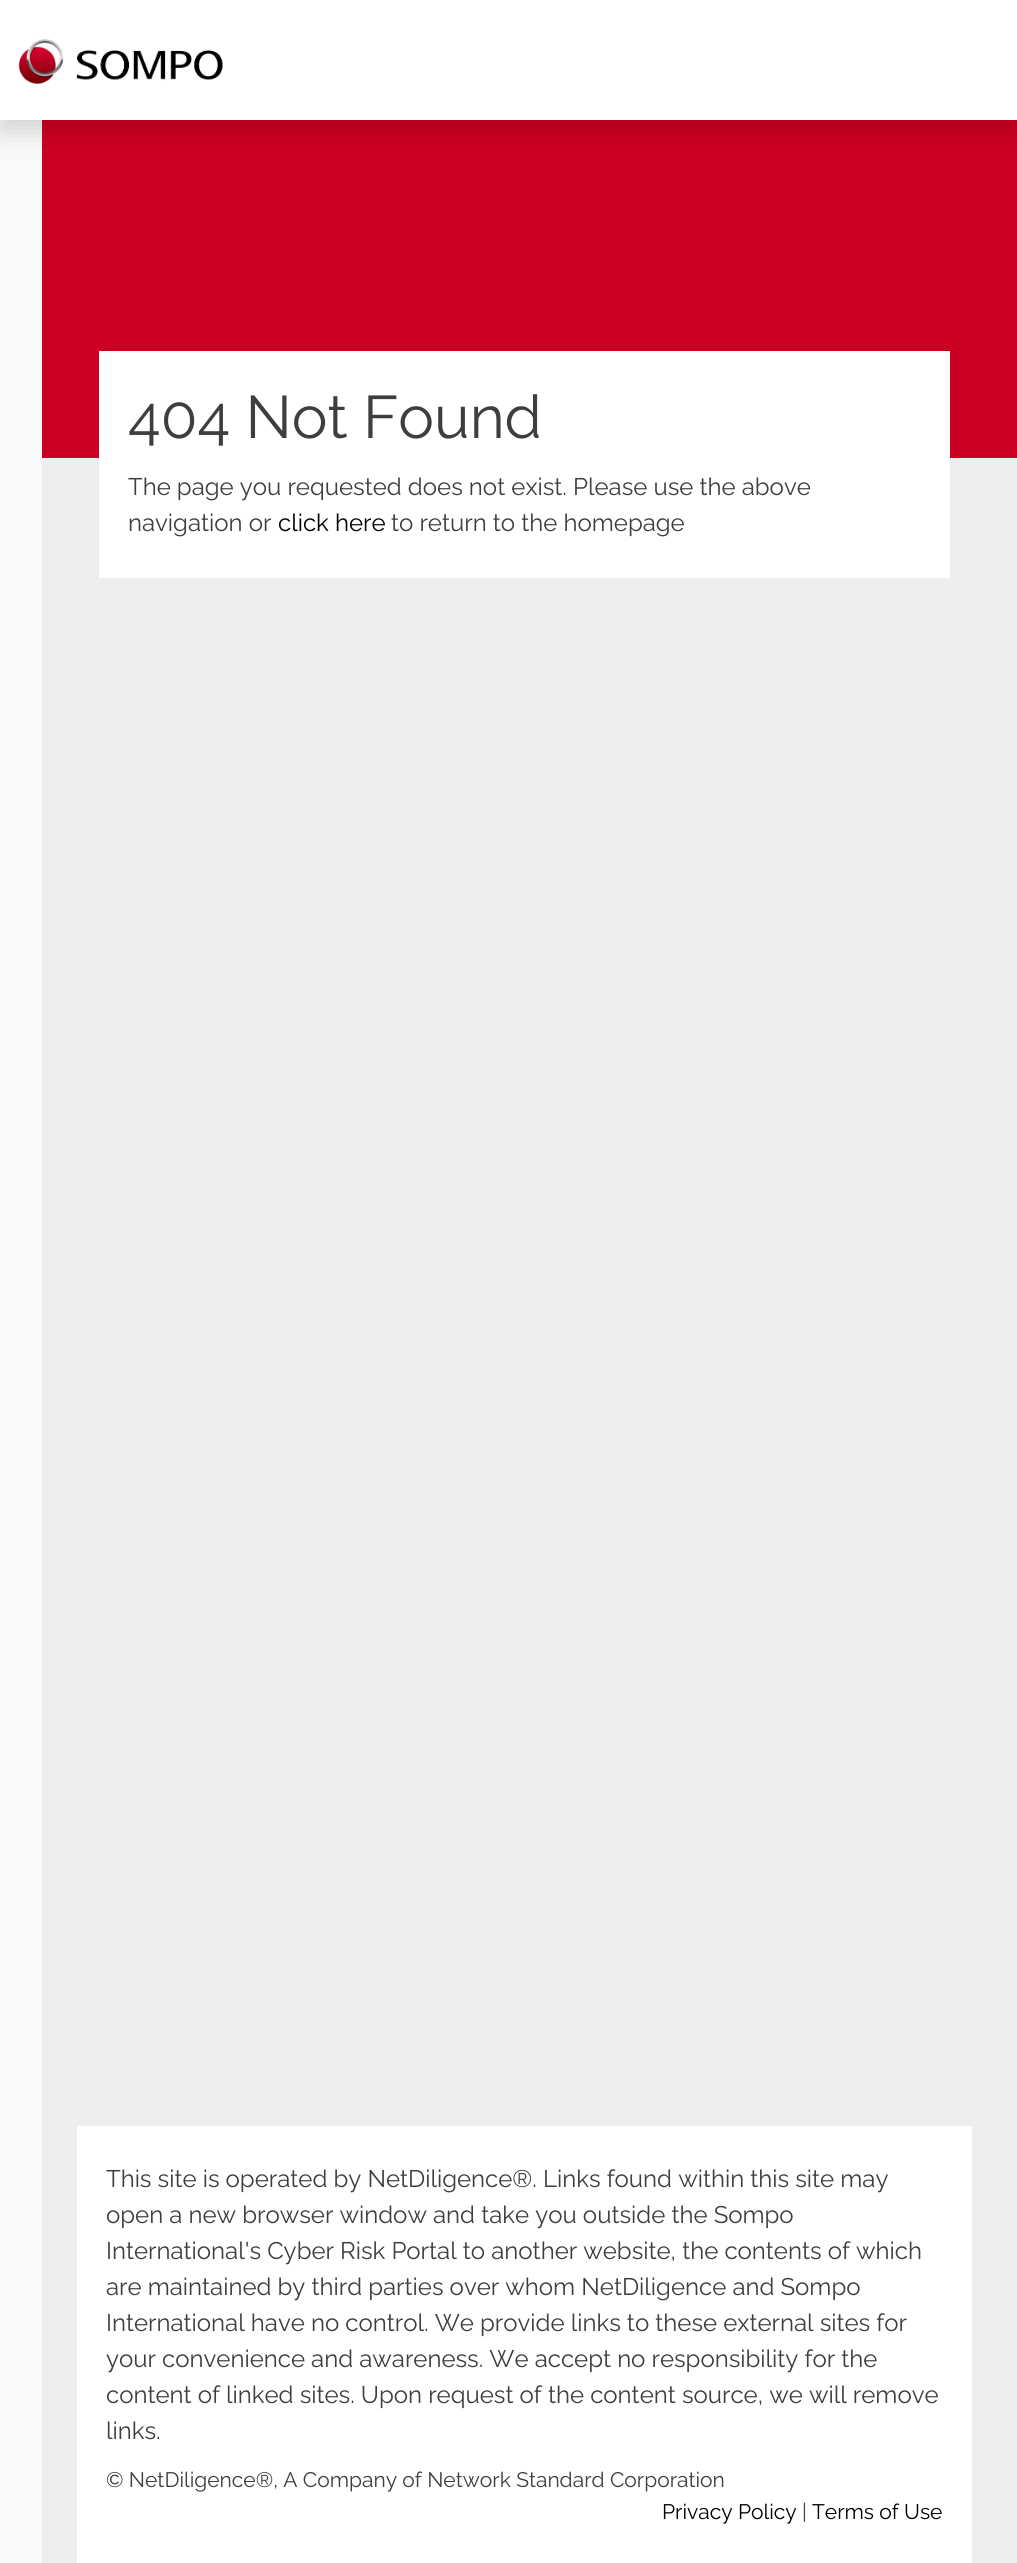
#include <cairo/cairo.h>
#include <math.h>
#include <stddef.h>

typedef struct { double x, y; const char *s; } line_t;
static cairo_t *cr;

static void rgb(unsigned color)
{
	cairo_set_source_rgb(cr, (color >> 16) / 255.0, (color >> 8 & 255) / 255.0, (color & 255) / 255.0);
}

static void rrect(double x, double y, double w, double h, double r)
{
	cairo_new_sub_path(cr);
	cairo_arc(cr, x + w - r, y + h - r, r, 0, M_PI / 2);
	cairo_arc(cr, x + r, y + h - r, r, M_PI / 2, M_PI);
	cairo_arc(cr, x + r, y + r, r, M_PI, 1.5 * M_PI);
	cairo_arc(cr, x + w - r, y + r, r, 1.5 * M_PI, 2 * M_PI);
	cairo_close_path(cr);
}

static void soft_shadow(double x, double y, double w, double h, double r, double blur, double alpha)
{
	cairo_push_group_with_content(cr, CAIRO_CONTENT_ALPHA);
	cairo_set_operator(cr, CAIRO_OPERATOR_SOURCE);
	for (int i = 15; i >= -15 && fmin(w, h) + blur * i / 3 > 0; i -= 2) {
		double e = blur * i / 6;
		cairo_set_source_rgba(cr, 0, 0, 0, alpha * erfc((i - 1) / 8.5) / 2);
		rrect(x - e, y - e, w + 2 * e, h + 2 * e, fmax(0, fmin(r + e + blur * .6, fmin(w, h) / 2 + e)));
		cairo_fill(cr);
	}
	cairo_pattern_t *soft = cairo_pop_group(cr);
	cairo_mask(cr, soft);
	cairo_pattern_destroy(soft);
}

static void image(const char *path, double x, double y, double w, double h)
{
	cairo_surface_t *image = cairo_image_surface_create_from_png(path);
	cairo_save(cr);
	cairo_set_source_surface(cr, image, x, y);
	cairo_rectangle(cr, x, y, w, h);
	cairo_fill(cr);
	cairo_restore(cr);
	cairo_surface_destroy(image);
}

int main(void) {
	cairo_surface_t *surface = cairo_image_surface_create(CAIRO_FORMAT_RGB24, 1017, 2563);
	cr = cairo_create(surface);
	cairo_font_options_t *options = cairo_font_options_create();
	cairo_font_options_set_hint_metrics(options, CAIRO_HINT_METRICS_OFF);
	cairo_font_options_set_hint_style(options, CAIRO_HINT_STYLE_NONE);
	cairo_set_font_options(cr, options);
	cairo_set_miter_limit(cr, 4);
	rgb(0xeeeeee);
	cairo_paint(cr);
	rgb(0xf8f9fa);
	cairo_rectangle(cr, 0, 120, 42, 2443);
	cairo_fill(cr);
	rgb(0xcc0022);
	cairo_rectangle(cr, 42, 120, 975, 338);
	cairo_fill(cr);
	rgb(0x000000);
	soft_shadow(0, 12, 1017, 120, 0, 12, 0.15);
	rgb(0xffffff);
	cairo_rectangle(cr, 0, 0, 1017, 120);
	cairo_fill(cr);
	image("img/1.png", 18, 39, 205, 45);
	cairo_rectangle(cr, 99, 351, 851, 227);
	cairo_fill(cr);
	cairo_rectangle(cr, 77, 2126, 895, 437);
	cairo_fill(cr);
	cairo_select_font_face(cr, "Raleway Thin", CAIRO_FONT_SLANT_NORMAL, CAIRO_FONT_WEIGHT_NORMAL);
	cairo_set_font_size(cr, 60);
	rgb(0x3e3e3e);
	cairo_move_to(cr, 128, 438);
	cairo_show_text(cr, "404 Not Found");
	cairo_set_font_size(cr, 24);
	cairo_move_to(cr, 128, 495);
	cairo_show_text(cr, "The page you requested does not exist. Please use the above");
	cairo_move_to(cr, 128, 531);
	cairo_show_text(cr, "navigation or");
	rgb(0x000000);
	cairo_move_to(cr, 278, 531);
	cairo_show_text(cr, "click here");
	rgb(0x3e3e3e);
	{
		static const line_t items[] = {
			{391, 531, "to return to the homepage"},
			{106, 2187, "This site is operated by NetDiligence®. Links found within this site may"},
			{106, 2223, "open a new browser window and take you outside the Sompo"},
			{106, 2259, "International's Cyber Risk Portal to another website, the contents of which"},
			{106, 2295, "are maintained by third parties over whom NetDiligence and Sompo"},
			{106, 2331, "International have no control. We provide links to these external sites for"},
			{106, 2367, "your convenience and awareness. We accept no responsibility for the"},
			{106, 2403, "content of linked sites. Upon request of the content source, we will remove"},
			{106, 2439, "links."},
		};
		for (size_t i = 0; i < sizeof items / sizeof *items; i++) {
			cairo_move_to(cr, items[i].x, items[i].y);
			cairo_show_text(cr, items[i].s);
		}
	}
	cairo_set_font_size(cr, 21);
	cairo_move_to(cr, 106, 2487);
	cairo_show_text(cr, "© NetDiligence®, A Company of Network Standard Corporation");
	rgb(0x000000);
	cairo_move_to(cr, 662, 2519);
	cairo_show_text(cr, "Privacy Policy");
	rgb(0x3e3e3e);
	cairo_move_to(cr, 802, 2519);
	cairo_show_text(cr, "|");
	rgb(0x000000);
	cairo_move_to(cr, 812, 2519);
	cairo_show_text(cr, "Terms of Use");
	cairo_surface_write_to_png(surface, "page.png");
	cairo_font_options_destroy(options);
	cairo_destroy(cr);
	cairo_surface_destroy(surface);
	return 0;
}
